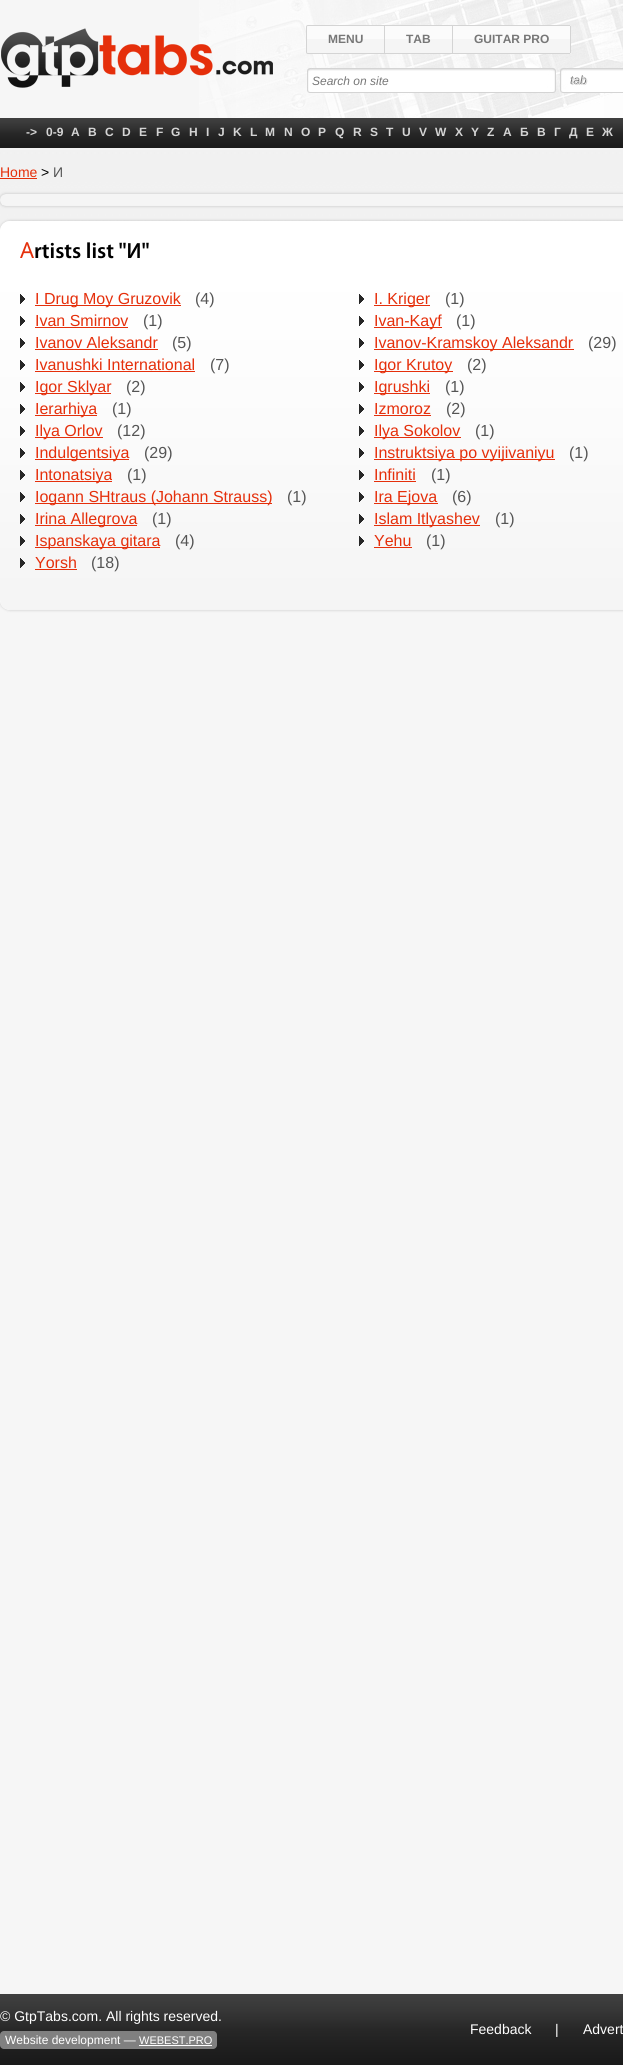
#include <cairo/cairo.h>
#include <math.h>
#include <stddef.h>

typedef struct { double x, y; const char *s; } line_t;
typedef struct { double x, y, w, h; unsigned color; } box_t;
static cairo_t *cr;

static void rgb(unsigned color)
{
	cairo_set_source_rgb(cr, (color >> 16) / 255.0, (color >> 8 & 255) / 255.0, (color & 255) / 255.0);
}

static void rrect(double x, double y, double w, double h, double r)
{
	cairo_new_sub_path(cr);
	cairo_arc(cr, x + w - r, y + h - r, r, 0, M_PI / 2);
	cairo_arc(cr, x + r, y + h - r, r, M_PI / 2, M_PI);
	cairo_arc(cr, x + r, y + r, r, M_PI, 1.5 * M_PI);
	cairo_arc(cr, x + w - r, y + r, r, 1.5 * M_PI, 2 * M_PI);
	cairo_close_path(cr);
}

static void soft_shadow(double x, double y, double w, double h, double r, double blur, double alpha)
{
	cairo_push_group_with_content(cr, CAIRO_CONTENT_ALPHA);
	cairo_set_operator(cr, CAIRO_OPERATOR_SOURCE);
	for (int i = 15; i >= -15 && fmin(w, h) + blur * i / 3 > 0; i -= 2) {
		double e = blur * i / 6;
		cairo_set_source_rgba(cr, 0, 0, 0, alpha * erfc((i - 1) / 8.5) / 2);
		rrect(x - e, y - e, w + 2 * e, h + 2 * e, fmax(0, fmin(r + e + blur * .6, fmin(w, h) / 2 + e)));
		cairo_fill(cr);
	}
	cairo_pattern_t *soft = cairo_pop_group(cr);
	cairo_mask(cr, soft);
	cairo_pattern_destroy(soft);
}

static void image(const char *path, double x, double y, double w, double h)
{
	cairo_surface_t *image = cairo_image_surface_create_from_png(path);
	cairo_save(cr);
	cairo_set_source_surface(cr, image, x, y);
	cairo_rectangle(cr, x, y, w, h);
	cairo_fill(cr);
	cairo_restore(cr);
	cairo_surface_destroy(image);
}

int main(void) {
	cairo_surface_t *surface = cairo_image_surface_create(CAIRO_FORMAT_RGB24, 623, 2065);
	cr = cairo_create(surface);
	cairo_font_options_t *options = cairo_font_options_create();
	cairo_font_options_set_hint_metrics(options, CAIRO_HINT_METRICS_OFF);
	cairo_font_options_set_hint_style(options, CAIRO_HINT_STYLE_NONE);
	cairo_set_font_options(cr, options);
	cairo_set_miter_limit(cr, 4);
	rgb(0xf6f6f6);
	cairo_paint(cr);
	image("img/1.png", 0, 148, 623, 83);
	image("img/2.png", 199, 0, 424, 118);
	image("img/3.png", 1, 28, 272, 60);
	rgb(0xf5f5f5);
	cairo_new_path(cr);
	cairo_move_to(cr, 308, 25);
	cairo_line_to(cr, 385, 25);
	cairo_line_to(cr, 385, 54);
	cairo_line_to(cr, 308, 54);
	cairo_curve_to(cr, 307, 54, 306, 53, 306, 52);
	cairo_line_to(cr, 306, 27);
	cairo_curve_to(cr, 306, 26, 307, 25, 308, 25);
	cairo_close_path(cr);
	cairo_fill(cr);
	rgb(0xfbfbfb);
	cairo_rectangle(cr, 306, 26, 78, 13);
	cairo_fill(cr);
	cairo_new_path(cr);
	cairo_move_to(cr, 308, 25.5);
	cairo_line_to(cr, 384.5, 25.5);
	cairo_line_to(cr, 384.5, 53.5);
	cairo_line_to(cr, 308, 53.5);
	cairo_curve_to(cr, 307, 53.5, 306.5, 53, 306.5, 52);
	cairo_line_to(cr, 306.5, 27);
	cairo_curve_to(cr, 306.5, 26, 307, 25.5, 308, 25.5);
	cairo_close_path(cr);
	rgb(0xd4d4d4);
	cairo_set_line_width(cr, 1);
	cairo_stroke(cr);
	{
		static const box_t items[] = {
			{385, 39, 67, 14, 0xf5f5f5},
			{385, 26, 67, 13, 0xfbfbfb},
			{385, 25, 68, 1, 0xd4d4d4},
			{452, 25, 1, 29, 0xd4d4d4},
			{385, 53, 68, 1, 0xd4d4d4},
		};
		for (size_t i = 0; i < sizeof items / sizeof *items; i++) {
			rgb(items[i].color);
			cairo_rectangle(cr, items[i].x, items[i].y, items[i].w, items[i].h);
			cairo_fill(cr);
		}
	}
	rgb(0xf5f5f5);
	cairo_new_path(cr);
	cairo_move_to(cr, 453, 25);
	cairo_line_to(cr, 569, 25);
	cairo_curve_to(cr, 570, 25, 571, 26, 571, 27);
	cairo_line_to(cr, 571, 52);
	cairo_curve_to(cr, 571, 53, 570, 54, 569, 54);
	cairo_line_to(cr, 453, 54);
	cairo_close_path(cr);
	cairo_fill(cr);
	{
		static const box_t items[] = {
			{453, 26, 117, 13, 0xfbfbfb},
			{453, 25, 117, 1, 0xd4d4d4},
			{570, 26, 1, 27, 0xd4d4d4},
			{453, 53, 117, 1, 0xd4d4d4},
		};
		for (size_t i = 0; i < sizeof items / sizeof *items; i++) {
			rgb(items[i].color);
			cairo_rectangle(cr, items[i].x, items[i].y, items[i].w, items[i].h);
			cairo_fill(cr);
		}
	}
	image("img/4.png", 307, 68, 249, 25);
	image("img/5.png", 560, 68, 63, 25);
	image("img/6.png", 0, 118, 623, 30);
	rgb(0xe52f0b);
	cairo_rectangle(cr, 0, 178, 37, 1);
	cairo_fill(cr);
	rgb(0x000000);
	soft_shadow(0, 194, 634, 12, 6, 1.5, 0.2);
	image("img/7.png", 0, 194, 623, 12);
	soft_shadow(0, 221, 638, 389, 10, 1.5, 0.2);
	rgb(0xffffff);
	rrect(0, 221, 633, 389, 10);
	cairo_fill(cr);
	image("img/8.png", 0, 221, 623, 389);
	image("img/9.png", 20, 294, 5, 10);
	rgb(0xe52f0b);
	cairo_rectangle(cr, 35, 305, 146, 1);
	cairo_fill(cr);
	image("img/9.png", 359, 294, 5, 10);
	cairo_rectangle(cr, 374, 305, 56, 1);
	cairo_fill(cr);
	image("img/9.png", 20, 316, 5, 10);
	cairo_rectangle(cr, 35, 327, 93, 1);
	cairo_fill(cr);
	image("img/9.png", 359, 316, 5, 10);
	cairo_rectangle(cr, 374, 327, 68, 1);
	cairo_fill(cr);
	image("img/10.png", 20, 338, 5, 10);
	cairo_rectangle(cr, 35, 349, 123, 1);
	cairo_fill(cr);
	image("img/10.png", 359, 338, 5, 10);
	cairo_rectangle(cr, 374, 349, 200, 1);
	cairo_fill(cr);
	image("img/11.png", 20, 360, 5, 10);
	cairo_rectangle(cr, 35, 371, 160, 1);
	cairo_fill(cr);
	image("img/11.png", 359, 360, 5, 10);
	cairo_rectangle(cr, 374, 371, 79, 1);
	cairo_fill(cr);
	image("img/12.png", 20, 382, 5, 10);
	cairo_rectangle(cr, 35, 393, 76, 1);
	cairo_fill(cr);
	image("img/12.png", 359, 382, 5, 10);
	cairo_rectangle(cr, 374, 393, 56, 1);
	cairo_fill(cr);
	image("img/13.png", 20, 404, 5, 10);
	cairo_rectangle(cr, 35, 415, 62, 1);
	cairo_fill(cr);
	image("img/13.png", 359, 404, 5, 10);
	cairo_rectangle(cr, 374, 415, 57, 1);
	cairo_fill(cr);
	image("img/14.png", 20, 426, 5, 10);
	cairo_rectangle(cr, 35, 437, 68, 1);
	cairo_fill(cr);
	image("img/14.png", 359, 426, 5, 10);
	cairo_rectangle(cr, 374, 437, 87, 1);
	cairo_fill(cr);
	image("img/15.png", 20, 448, 5, 10);
	cairo_rectangle(cr, 35, 459, 94, 1);
	cairo_fill(cr);
	image("img/15.png", 359, 448, 5, 10);
	cairo_rectangle(cr, 374, 459, 181, 1);
	cairo_fill(cr);
	image("img/16.png", 20, 470, 5, 10);
	cairo_rectangle(cr, 35, 481, 77, 1);
	cairo_fill(cr);
	image("img/16.png", 359, 470, 5, 10);
	cairo_rectangle(cr, 374, 481, 42, 1);
	cairo_fill(cr);
	image("img/17.png", 20, 492, 5, 10);
	cairo_rectangle(cr, 35, 503, 237, 1);
	cairo_fill(cr);
	image("img/17.png", 359, 492, 5, 10);
	cairo_rectangle(cr, 374, 503, 64, 1);
	cairo_fill(cr);
	image("img/18.png", 20, 514, 5, 10);
	cairo_rectangle(cr, 35, 525, 102, 1);
	cairo_fill(cr);
	image("img/18.png", 359, 514, 5, 10);
	cairo_rectangle(cr, 374, 525, 106, 1);
	cairo_fill(cr);
	image("img/19.png", 20, 536, 5, 10);
	cairo_rectangle(cr, 35, 547, 125, 1);
	cairo_fill(cr);
	image("img/19.png", 359, 536, 5, 10);
	cairo_rectangle(cr, 374, 547, 38, 1);
	cairo_fill(cr);
	image("img/20.png", 20, 558, 5, 10);
	cairo_rectangle(cr, 35, 569, 42, 1);
	cairo_fill(cr);
	image("img/21.png", 0, 1994, 623, 71);
	rgb(0x808080);
	rrect(0, 2031, 217, 18, 4);
	cairo_fill(cr);
	rgb(0xffffff);
	cairo_rectangle(cr, 139, 2045, 73, 1);
	cairo_fill(cr);
	cairo_select_font_face(cr, "Liberation Sans", CAIRO_FONT_SLANT_NORMAL, CAIRO_FONT_WEIGHT_BOLD);
	cairo_set_font_size(cr, 12);
	rgb(0x777777);
	{
		static const line_t items[] = {
			{328, 43, "MENU"},
			{406, 43, "TAB"},
			{474, 43, "GUITAR PRO"},
		};
		for (size_t i = 0; i < sizeof items / sizeof *items; i++) {
			cairo_move_to(cr, items[i].x, items[i].y);
			cairo_show_text(cr, items[i].s);
		}
	}
	cairo_select_font_face(cr, "Liberation Sans", CAIRO_FONT_SLANT_ITALIC, CAIRO_FONT_WEIGHT_NORMAL);
	cairo_move_to(cr, 312, 85);
	cairo_show_text(cr, "Search on site");
	cairo_move_to(cr, 570, 84);
	cairo_show_text(cr, "tab");
	rgb(0xdadada);
	cairo_move_to(cr, 571, 85);
	cairo_show_text(cr, "tab");
	cairo_select_font_face(cr, "Liberation Sans", CAIRO_FONT_SLANT_NORMAL, CAIRO_FONT_WEIGHT_BOLD);
	rgb(0xd4d4d4);
	{
		static const line_t items[] = {
			{26, 136, "->"},
			{46, 136, "0-9"},
			{71, 136, "A"},
			{88, 136, "B"},
			{105, 136, "C"},
			{122, 136, "D"},
			{139, 136, "E"},
			{156, 136, "F"},
			{171, 136, "G"},
			{189, 136, "H"},
			{206, 136, "I"},
			{218, 136, "J"},
			{233, 136, "K"},
			{250, 136, "L"},
			{265, 136, "M"},
			{284, 136, "N"},
			{301, 136, "O"},
			{318, 136, "P"},
			{335, 136, "Q"},
			{353, 136, "R"},
			{370, 136, "S"},
			{386, 136, "T"},
			{402, 136, "U"},
			{419, 136, "V"},
			{435, 136, "W"},
			{455, 136, "X"},
			{471, 136, "Y"},
			{487, 136, "Z"},
			{503, 136, "А"},
			{520, 136, "Б"},
			{537, 136, "В"},
			{554, 136, "Г"},
			{569, 136, "Д"},
			{586, 136, "Е"},
			{602, 136, "Ж"},
		};
		for (size_t i = 0; i < sizeof items / sizeof *items; i++) {
			cairo_move_to(cr, items[i].x, items[i].y);
			cairo_show_text(cr, items[i].s);
		}
	}
	cairo_select_font_face(cr, "Liberation Sans", CAIRO_FONT_SLANT_NORMAL, CAIRO_FONT_WEIGHT_NORMAL);
	cairo_set_font_size(cr, 14);
	rgb(0xe52f0b);
	cairo_move_to(cr, 0, 177);
	cairo_show_text(cr, "Home");
	rgb(0x000000);
	cairo_move_to(cr, 41, 177);
	cairo_show_text(cr, ">");
	rgb(0x555555);
	cairo_move_to(cr, 53, 177);
	cairo_show_text(cr, "И");
	cairo_select_font_face(cr, "Noto Sans", CAIRO_FONT_SLANT_NORMAL, CAIRO_FONT_WEIGHT_NORMAL);
	cairo_set_font_size(cr, 22);
	rgb(0xe52f0b);
	cairo_move_to(cr, 20, 258);
	cairo_show_text(cr, "A");
	cairo_select_font_face(cr, "Myriad SemiBold", CAIRO_FONT_SLANT_NORMAL, CAIRO_FONT_WEIGHT_NORMAL);
	rgb(0x000000);
	cairo_move_to(cr, 34, 258);
	cairo_show_text(cr, "rtists list \"И\"");
	cairo_select_font_face(cr, "Liberation Sans", CAIRO_FONT_SLANT_NORMAL, CAIRO_FONT_WEIGHT_NORMAL);
	cairo_set_font_size(cr, 16);
	rgb(0xe52f0b);
	cairo_move_to(cr, 35, 304);
	cairo_show_text(cr, "I Drug Moy Gruzovik");
	rgb(0x555555);
	cairo_move_to(cr, 195, 304);
	cairo_show_text(cr, "(4)");
	rgb(0xe52f0b);
	cairo_move_to(cr, 374, 304);
	cairo_show_text(cr, "I. Kriger");
	rgb(0x555555);
	cairo_move_to(cr, 445, 304);
	cairo_show_text(cr, "(1)");
	rgb(0xe52f0b);
	cairo_move_to(cr, 35, 326);
	cairo_show_text(cr, "Ivan Smirnov");
	rgb(0x555555);
	cairo_move_to(cr, 143, 326);
	cairo_show_text(cr, "(1)");
	rgb(0xe52f0b);
	cairo_move_to(cr, 374, 326);
	cairo_show_text(cr, "Ivan-Kayf");
	rgb(0x555555);
	cairo_move_to(cr, 456, 326);
	cairo_show_text(cr, "(1)");
	rgb(0xe52f0b);
	cairo_move_to(cr, 35, 348);
	cairo_show_text(cr, "Ivanov Aleksandr");
	rgb(0x555555);
	cairo_move_to(cr, 172, 348);
	cairo_show_text(cr, "(5)");
	rgb(0xe52f0b);
	cairo_move_to(cr, 374, 348);
	cairo_show_text(cr, "Ivanov-Kramskoy Aleksandr");
	rgb(0x555555);
	cairo_move_to(cr, 588, 348);
	cairo_show_text(cr, "(29)");
	rgb(0xe52f0b);
	cairo_move_to(cr, 35, 370);
	cairo_show_text(cr, "Ivanushki International");
	rgb(0x555555);
	cairo_move_to(cr, 210, 370);
	cairo_show_text(cr, "(7)");
	rgb(0xe52f0b);
	cairo_move_to(cr, 374, 370);
	cairo_show_text(cr, "Igor Krutoy");
	rgb(0x555555);
	cairo_move_to(cr, 467, 370);
	cairo_show_text(cr, "(2)");
	rgb(0xe52f0b);
	cairo_move_to(cr, 35, 392);
	cairo_show_text(cr, "Igor Sklyar");
	rgb(0x555555);
	cairo_move_to(cr, 126, 392);
	cairo_show_text(cr, "(2)");
	rgb(0xe52f0b);
	cairo_move_to(cr, 374, 392);
	cairo_show_text(cr, "Igrushki");
	rgb(0x555555);
	cairo_move_to(cr, 445, 392);
	cairo_show_text(cr, "(1)");
	rgb(0xe52f0b);
	cairo_move_to(cr, 35, 414);
	cairo_show_text(cr, "Ierarhiya");
	rgb(0x555555);
	cairo_move_to(cr, 112, 414);
	cairo_show_text(cr, "(1)");
	rgb(0xe52f0b);
	cairo_move_to(cr, 374, 414);
	cairo_show_text(cr, "Izmoroz");
	rgb(0x555555);
	cairo_move_to(cr, 446, 414);
	cairo_show_text(cr, "(2)");
	rgb(0xe52f0b);
	cairo_move_to(cr, 35, 436);
	cairo_show_text(cr, "Ilya Orlov");
	rgb(0x555555);
	cairo_move_to(cr, 117, 436);
	cairo_show_text(cr, "(12)");
	rgb(0xe52f0b);
	cairo_move_to(cr, 374, 436);
	cairo_show_text(cr, "Ilya Sokolov");
	rgb(0x555555);
	cairo_move_to(cr, 475, 436);
	cairo_show_text(cr, "(1)");
	rgb(0xe52f0b);
	cairo_move_to(cr, 35, 458);
	cairo_show_text(cr, "Indulgentsiya");
	rgb(0x555555);
	cairo_move_to(cr, 144, 458);
	cairo_show_text(cr, "(29)");
	rgb(0xe52f0b);
	cairo_move_to(cr, 374, 458);
	cairo_show_text(cr, "Instruktsiya po vyijivaniyu");
	rgb(0x555555);
	cairo_move_to(cr, 569, 458);
	cairo_show_text(cr, "(1)");
	rgb(0xe52f0b);
	cairo_move_to(cr, 35, 480);
	cairo_show_text(cr, "Intonatsiya");
	rgb(0x555555);
	cairo_move_to(cr, 127, 480);
	cairo_show_text(cr, "(1)");
	rgb(0xe52f0b);
	cairo_move_to(cr, 374, 480);
	cairo_show_text(cr, "Infiniti");
	rgb(0x555555);
	cairo_move_to(cr, 431, 480);
	cairo_show_text(cr, "(1)");
	rgb(0xe52f0b);
	cairo_move_to(cr, 35, 502);
	cairo_show_text(cr, "Iogann SHtraus (Johann Strauss)");
	rgb(0x555555);
	cairo_move_to(cr, 287, 502);
	cairo_show_text(cr, "(1)");
	rgb(0xe52f0b);
	cairo_move_to(cr, 374, 502);
	cairo_show_text(cr, "Ira Ejova");
	rgb(0x555555);
	cairo_move_to(cr, 452, 502);
	cairo_show_text(cr, "(6)");
	rgb(0xe52f0b);
	cairo_move_to(cr, 35, 524);
	cairo_show_text(cr, "Irina Allegrova");
	rgb(0x555555);
	cairo_move_to(cr, 152, 524);
	cairo_show_text(cr, "(1)");
	rgb(0xe52f0b);
	cairo_move_to(cr, 374, 524);
	cairo_show_text(cr, "Islam Itlyashev");
	rgb(0x555555);
	cairo_move_to(cr, 495, 524);
	cairo_show_text(cr, "(1)");
	rgb(0xe52f0b);
	cairo_move_to(cr, 35, 546);
	cairo_show_text(cr, "Ispanskaya gitara");
	rgb(0x555555);
	cairo_move_to(cr, 175, 546);
	cairo_show_text(cr, "(4)");
	rgb(0xe52f0b);
	cairo_move_to(cr, 374, 546);
	cairo_show_text(cr, "Yehu");
	rgb(0x555555);
	cairo_move_to(cr, 426, 546);
	cairo_show_text(cr, "(1)");
	rgb(0xe52f0b);
	cairo_move_to(cr, 35, 568);
	cairo_show_text(cr, "Yorsh");
	rgb(0x555555);
	cairo_move_to(cr, 91, 568);
	cairo_show_text(cr, "(18)");
	cairo_set_font_size(cr, 14);
	rgb(0xffffff);
	cairo_move_to(cr, 0, 2021);
	cairo_show_text(cr, "© GtpTabs.com. All rights reserved.");
	cairo_set_font_size(cr, 12);
	cairo_move_to(cr, 5, 2044);
	cairo_show_text(cr, "Website development —");
	cairo_set_font_size(cr, 11);
	cairo_move_to(cr, 139, 2044);
	cairo_show_text(cr, "WEBEST.PRO");
	cairo_set_font_size(cr, 14);
	{
		static const line_t items[] = {
			{470, 2034, "Feedback"},
			{555, 2034, "|"},
			{583, 2034, "Advert"},
		};
		for (size_t i = 0; i < sizeof items / sizeof *items; i++) {
			cairo_move_to(cr, items[i].x, items[i].y);
			cairo_show_text(cr, items[i].s);
		}
	}
	cairo_surface_write_to_png(surface, "page.png");
	cairo_font_options_destroy(options);
	cairo_destroy(cr);
	cairo_surface_destroy(surface);
	return 0;
}
